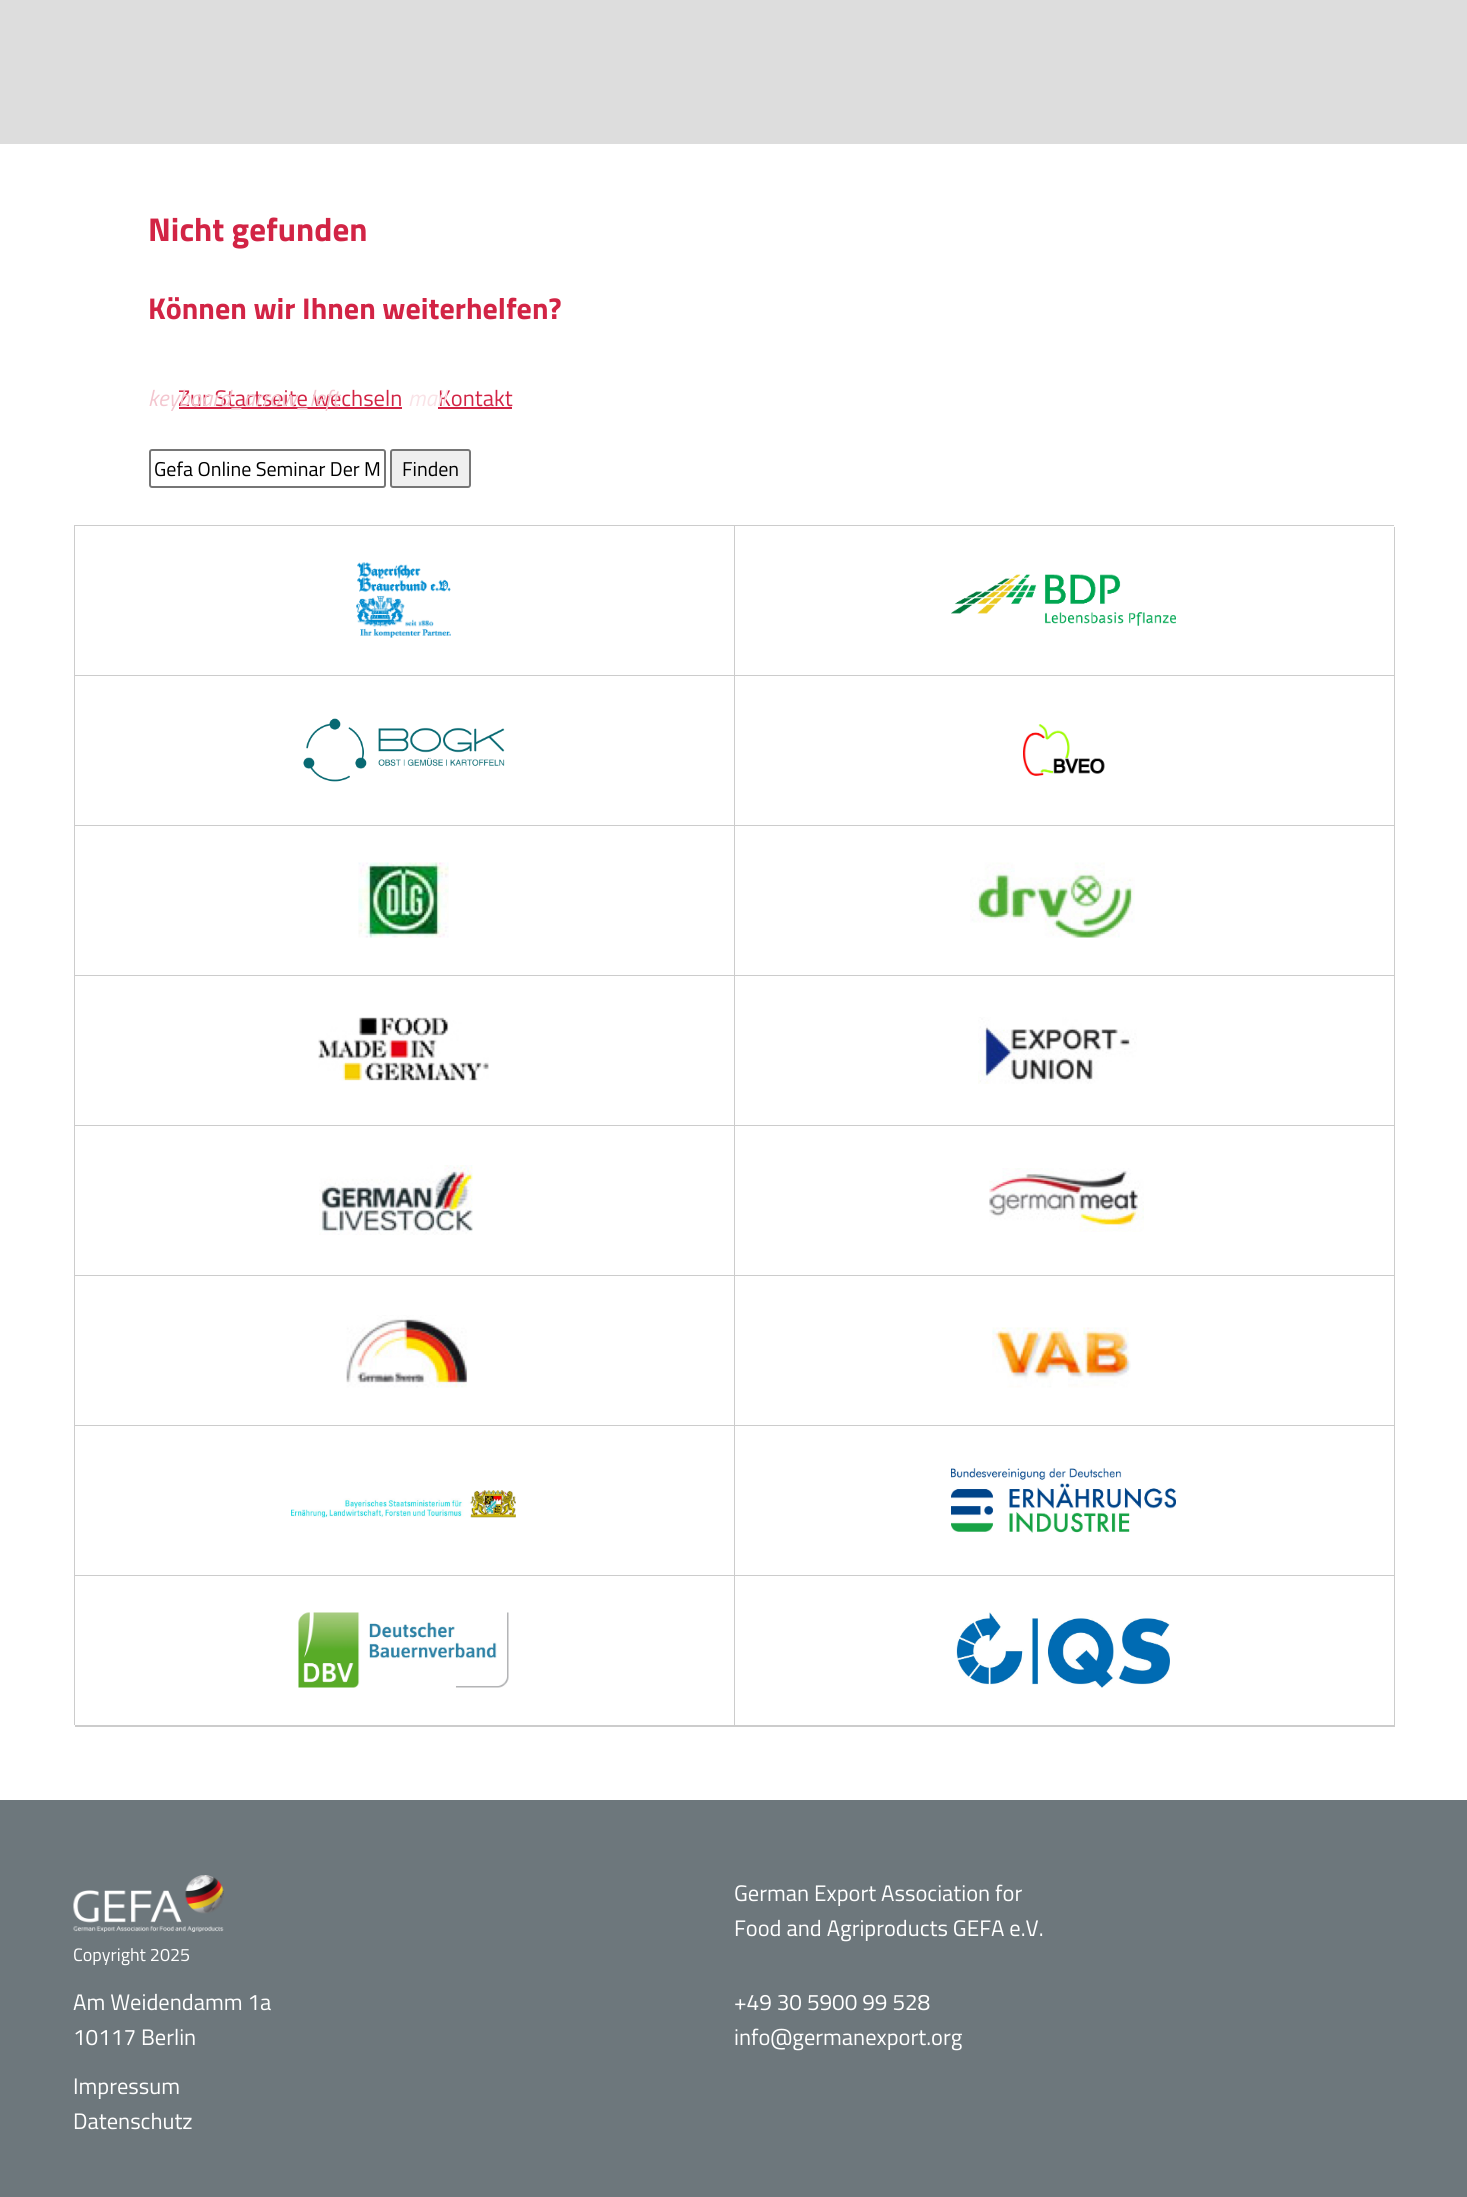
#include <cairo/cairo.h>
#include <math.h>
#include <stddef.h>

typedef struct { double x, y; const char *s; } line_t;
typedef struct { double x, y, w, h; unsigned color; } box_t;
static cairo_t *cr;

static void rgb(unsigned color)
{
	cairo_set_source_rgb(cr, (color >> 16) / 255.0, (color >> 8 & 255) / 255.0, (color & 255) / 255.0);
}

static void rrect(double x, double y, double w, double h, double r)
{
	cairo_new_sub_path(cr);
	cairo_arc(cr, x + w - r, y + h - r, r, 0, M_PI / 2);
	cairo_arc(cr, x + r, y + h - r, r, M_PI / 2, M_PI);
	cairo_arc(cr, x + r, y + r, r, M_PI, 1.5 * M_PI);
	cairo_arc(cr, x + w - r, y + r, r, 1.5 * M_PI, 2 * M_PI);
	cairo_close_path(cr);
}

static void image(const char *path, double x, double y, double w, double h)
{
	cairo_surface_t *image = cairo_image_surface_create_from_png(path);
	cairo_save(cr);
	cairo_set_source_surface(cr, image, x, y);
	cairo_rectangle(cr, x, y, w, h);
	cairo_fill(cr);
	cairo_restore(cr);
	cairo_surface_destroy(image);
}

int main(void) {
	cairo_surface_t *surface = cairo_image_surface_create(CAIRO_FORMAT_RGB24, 1467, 2197);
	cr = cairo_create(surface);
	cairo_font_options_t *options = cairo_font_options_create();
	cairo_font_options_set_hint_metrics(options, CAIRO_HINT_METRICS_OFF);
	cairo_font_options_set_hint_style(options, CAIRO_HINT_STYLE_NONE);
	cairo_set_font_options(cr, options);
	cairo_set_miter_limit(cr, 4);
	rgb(0xffffff);
	cairo_paint(cr);
	{
		static const box_t items[] = {
			{0, 0, 1467, 144, 0xdddddd},
			{179, 407, 223, 2, 0xd22445},
			{438, 407, 74, 2, 0xd22445},
		};
		for (size_t i = 0; i < sizeof items / sizeof *items; i++) {
			rgb(items[i].color);
			cairo_rectangle(cr, items[i].x, items[i].y, items[i].w, items[i].h);
			cairo_fill(cr);
		}
	}
	rrect(150, 450, 235, 37, 2);
	rgb(0x767676);
	cairo_stroke(cr);
	rgb(0xefefef);
	rrect(391, 450, 79, 37, 2);
	cairo_fill_preserve(cr);
	rgb(0x767676);
	cairo_stroke(cr);
	cairo_save(cr);
	cairo_rectangle(cr, 74, 525, 660, 150);
	cairo_clip(cr);
	rgb(0xcccccc);
	cairo_set_fill_rule(cr, CAIRO_FILL_RULE_EVEN_ODD);
	cairo_new_path(cr);
	cairo_move_to(cr, -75, 376);
	cairo_line_to(cr, 882, 376);
	cairo_line_to(cr, 882, 824);
	cairo_line_to(cr, -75, 824);
	cairo_close_path(cr);
	cairo_move_to(cr, 75, 526);
	cairo_line_to(cr, 735, 526);
	cairo_line_to(cr, 735, 676);
	cairo_line_to(cr, 75, 676);
	cairo_close_path(cr);
	cairo_fill(cr);
	cairo_restore(cr);
	image("img/1.png", 356, 562, 95, 76);
	rgb(0xcccccc);
	cairo_new_path(cr);
	cairo_move_to(cr, 735, 675);
	cairo_line_to(cr, 735, 677);
	cairo_line_to(cr, 1395, 677);
	cairo_line_to(cr, 1395, 527);
	cairo_line_to(cr, 1394, 527);
	cairo_line_to(cr, 1394, 675);
	cairo_close_path(cr);
	cairo_fill(cr);
	cairo_save(cr);
	cairo_rectangle(cr, 734, 525, 660, 150);
	cairo_clip(cr);
	cairo_set_fill_rule(cr, CAIRO_FILL_RULE_EVEN_ODD);
	cairo_new_path(cr);
	cairo_move_to(cr, 585, 376);
	cairo_line_to(cr, 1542, 376);
	cairo_line_to(cr, 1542, 824);
	cairo_line_to(cr, 585, 824);
	cairo_close_path(cr);
	cairo_move_to(cr, 735, 526);
	cairo_line_to(cr, 1395, 526);
	cairo_line_to(cr, 1395, 676);
	cairo_line_to(cr, 735, 676);
	cairo_close_path(cr);
	cairo_fill(cr);
	cairo_restore(cr);
	image("img/2.png", 951, 574, 225, 52);
	cairo_save(cr);
	cairo_rectangle(cr, 74, 675, 660, 150);
	cairo_clip(cr);
	cairo_set_fill_rule(cr, CAIRO_FILL_RULE_EVEN_ODD);
	cairo_new_path(cr);
	cairo_move_to(cr, -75, 526);
	cairo_line_to(cr, 882, 526);
	cairo_line_to(cr, 882, 974);
	cairo_line_to(cr, -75, 974);
	cairo_close_path(cr);
	cairo_move_to(cr, 75, 676);
	cairo_line_to(cr, 735, 676);
	cairo_line_to(cr, 735, 826);
	cairo_line_to(cr, 75, 826);
	cairo_close_path(cr);
	cairo_fill(cr);
	cairo_restore(cr);
	image("img/3.png", 303, 718, 202, 64);
	cairo_new_path(cr);
	cairo_move_to(cr, 735, 825);
	cairo_line_to(cr, 735, 827);
	cairo_line_to(cr, 1395, 827);
	cairo_line_to(cr, 1395, 677);
	cairo_line_to(cr, 1394, 677);
	cairo_line_to(cr, 1394, 825);
	cairo_close_path(cr);
	cairo_fill(cr);
	rgb(0xffffff);
	cairo_rectangle(cr, 735, 676, 659, 1);
	cairo_fill(cr);
	cairo_save(cr);
	cairo_rectangle(cr, 734, 675, 660, 150);
	cairo_clip(cr);
	rgb(0xcccccc);
	cairo_set_fill_rule(cr, CAIRO_FILL_RULE_EVEN_ODD);
	cairo_new_path(cr);
	cairo_move_to(cr, 585, 526);
	cairo_line_to(cr, 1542, 526);
	cairo_line_to(cr, 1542, 974);
	cairo_line_to(cr, 585, 974);
	cairo_close_path(cr);
	cairo_move_to(cr, 735, 676);
	cairo_line_to(cr, 1395, 676);
	cairo_line_to(cr, 1395, 826);
	cairo_line_to(cr, 735, 826);
	cairo_close_path(cr);
	cairo_fill(cr);
	cairo_restore(cr);
	image("img/4.png", 1023, 724, 82, 52);
	cairo_save(cr);
	cairo_rectangle(cr, 74, 825, 660, 150);
	cairo_clip(cr);
	rgb(0xcccccc);
	cairo_set_fill_rule(cr, CAIRO_FILL_RULE_EVEN_ODD);
	cairo_new_path(cr);
	cairo_move_to(cr, -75, 676);
	cairo_line_to(cr, 882, 676);
	cairo_line_to(cr, 882, 1124);
	cairo_line_to(cr, -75, 1124);
	cairo_close_path(cr);
	cairo_move_to(cr, 75, 826);
	cairo_line_to(cr, 735, 826);
	cairo_line_to(cr, 735, 976);
	cairo_line_to(cr, 75, 976);
	cairo_close_path(cr);
	cairo_fill(cr);
	cairo_restore(cr);
	image("img/5.png", 358, 862, 91, 76);
	rgb(0xcccccc);
	cairo_new_path(cr);
	cairo_move_to(cr, 735, 975);
	cairo_line_to(cr, 735, 977);
	cairo_line_to(cr, 1395, 977);
	cairo_line_to(cr, 1395, 827);
	cairo_line_to(cr, 1394, 827);
	cairo_line_to(cr, 1394, 975);
	cairo_close_path(cr);
	cairo_fill(cr);
	rgb(0xffffff);
	cairo_rectangle(cr, 735, 826, 659, 1);
	cairo_fill(cr);
	cairo_save(cr);
	cairo_rectangle(cr, 734, 825, 660, 150);
	cairo_clip(cr);
	rgb(0xcccccc);
	cairo_set_fill_rule(cr, CAIRO_FILL_RULE_EVEN_ODD);
	cairo_new_path(cr);
	cairo_move_to(cr, 585, 676);
	cairo_line_to(cr, 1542, 676);
	cairo_line_to(cr, 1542, 1124);
	cairo_line_to(cr, 585, 1124);
	cairo_close_path(cr);
	cairo_move_to(cr, 735, 826);
	cairo_line_to(cr, 1395, 826);
	cairo_line_to(cr, 1395, 976);
	cairo_line_to(cr, 735, 976);
	cairo_close_path(cr);
	cairo_fill(cr);
	cairo_restore(cr);
	image("img/6.png", 970, 862, 165, 76);
	cairo_save(cr);
	cairo_rectangle(cr, 74, 975, 660, 150);
	cairo_clip(cr);
	rgb(0xcccccc);
	cairo_set_fill_rule(cr, CAIRO_FILL_RULE_EVEN_ODD);
	cairo_new_path(cr);
	cairo_move_to(cr, -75, 826);
	cairo_line_to(cr, 882, 826);
	cairo_line_to(cr, 882, 1274);
	cairo_line_to(cr, -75, 1274);
	cairo_close_path(cr);
	cairo_move_to(cr, 75, 976);
	cairo_line_to(cr, 735, 976);
	cairo_line_to(cr, 735, 1126);
	cairo_line_to(cr, 75, 1126);
	cairo_close_path(cr);
	cairo_fill(cr);
	cairo_restore(cr);
	image("img/7.png", 318, 1017, 171, 64);
	rgb(0xcccccc);
	cairo_new_path(cr);
	cairo_move_to(cr, 735, 1125);
	cairo_line_to(cr, 735, 1127);
	cairo_line_to(cr, 1395, 1127);
	cairo_line_to(cr, 1395, 977);
	cairo_line_to(cr, 1394, 977);
	cairo_line_to(cr, 1394, 1125);
	cairo_close_path(cr);
	cairo_fill(cr);
	rgb(0xffffff);
	cairo_rectangle(cr, 735, 976, 659, 1);
	cairo_fill(cr);
	cairo_save(cr);
	cairo_rectangle(cr, 734, 975, 660, 150);
	cairo_clip(cr);
	rgb(0xcccccc);
	cairo_set_fill_rule(cr, CAIRO_FILL_RULE_EVEN_ODD);
	cairo_new_path(cr);
	cairo_move_to(cr, 585, 826);
	cairo_line_to(cr, 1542, 826);
	cairo_line_to(cr, 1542, 1274);
	cairo_line_to(cr, 585, 1274);
	cairo_close_path(cr);
	cairo_move_to(cr, 735, 976);
	cairo_line_to(cr, 1395, 976);
	cairo_line_to(cr, 1395, 1126);
	cairo_line_to(cr, 735, 1126);
	cairo_close_path(cr);
	cairo_fill(cr);
	cairo_restore(cr);
	image("img/8.png", 978, 1017, 159, 67);
	cairo_save(cr);
	cairo_rectangle(cr, 74, 1125, 660, 150);
	cairo_clip(cr);
	rgb(0xcccccc);
	cairo_set_fill_rule(cr, CAIRO_FILL_RULE_EVEN_ODD);
	cairo_new_path(cr);
	cairo_move_to(cr, -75, 976);
	cairo_line_to(cr, 882, 976);
	cairo_line_to(cr, 882, 1424);
	cairo_line_to(cr, -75, 1424);
	cairo_close_path(cr);
	cairo_move_to(cr, 75, 1126);
	cairo_line_to(cr, 735, 1126);
	cairo_line_to(cr, 735, 1276);
	cairo_line_to(cr, 75, 1276);
	cairo_close_path(cr);
	cairo_fill(cr);
	cairo_restore(cr);
	image("img/9.png", 319, 1165, 154, 70);
	rgb(0xcccccc);
	cairo_new_path(cr);
	cairo_move_to(cr, 735, 1275);
	cairo_line_to(cr, 735, 1277);
	cairo_line_to(cr, 1395, 1277);
	cairo_line_to(cr, 1395, 1127);
	cairo_line_to(cr, 1394, 1127);
	cairo_line_to(cr, 1394, 1275);
	cairo_close_path(cr);
	cairo_fill(cr);
	rgb(0xffffff);
	cairo_rectangle(cr, 735, 1126, 659, 1);
	cairo_fill(cr);
	cairo_save(cr);
	cairo_rectangle(cr, 734, 1125, 660, 150);
	cairo_clip(cr);
	rgb(0xcccccc);
	cairo_set_fill_rule(cr, CAIRO_FILL_RULE_EVEN_ODD);
	cairo_new_path(cr);
	cairo_move_to(cr, 585, 976);
	cairo_line_to(cr, 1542, 976);
	cairo_line_to(cr, 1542, 1424);
	cairo_line_to(cr, 585, 1424);
	cairo_close_path(cr);
	cairo_move_to(cr, 735, 1126);
	cairo_line_to(cr, 1395, 1126);
	cairo_line_to(cr, 1395, 1276);
	cairo_line_to(cr, 735, 1276);
	cairo_close_path(cr);
	cairo_fill(cr);
	cairo_restore(cr);
	image("img/10.png", 989, 1168, 155, 64);
	cairo_save(cr);
	cairo_rectangle(cr, 74, 1275, 660, 150);
	cairo_clip(cr);
	rgb(0xcccccc);
	cairo_set_fill_rule(cr, CAIRO_FILL_RULE_EVEN_ODD);
	cairo_new_path(cr);
	cairo_move_to(cr, -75, 1126);
	cairo_line_to(cr, 882, 1126);
	cairo_line_to(cr, 882, 1574);
	cairo_line_to(cr, -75, 1574);
	cairo_close_path(cr);
	cairo_move_to(cr, 75, 1276);
	cairo_line_to(cr, 735, 1276);
	cairo_line_to(cr, 735, 1426);
	cairo_line_to(cr, 75, 1426);
	cairo_close_path(cr);
	cairo_fill(cr);
	cairo_restore(cr);
	image("img/11.png", 346, 1315, 122, 73);
	rgb(0xcccccc);
	cairo_new_path(cr);
	cairo_move_to(cr, 735, 1425);
	cairo_line_to(cr, 735, 1427);
	cairo_line_to(cr, 1395, 1427);
	cairo_line_to(cr, 1395, 1277);
	cairo_line_to(cr, 1394, 1277);
	cairo_line_to(cr, 1394, 1425);
	cairo_close_path(cr);
	cairo_fill(cr);
	rgb(0xffffff);
	cairo_rectangle(cr, 735, 1276, 659, 1);
	cairo_fill(cr);
	cairo_save(cr);
	cairo_rectangle(cr, 734, 1275, 660, 150);
	cairo_clip(cr);
	rgb(0xcccccc);
	cairo_set_fill_rule(cr, CAIRO_FILL_RULE_EVEN_ODD);
	cairo_new_path(cr);
	cairo_move_to(cr, 585, 1126);
	cairo_line_to(cr, 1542, 1126);
	cairo_line_to(cr, 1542, 1574);
	cairo_line_to(cr, 585, 1574);
	cairo_close_path(cr);
	cairo_move_to(cr, 735, 1276);
	cairo_line_to(cr, 1395, 1276);
	cairo_line_to(cr, 1395, 1426);
	cairo_line_to(cr, 735, 1426);
	cairo_close_path(cr);
	cairo_fill(cr);
	cairo_restore(cr);
	image("img/12.png", 992, 1327, 139, 61);
	cairo_save(cr);
	cairo_rectangle(cr, 74, 1425, 660, 150);
	cairo_clip(cr);
	rgb(0xcccccc);
	cairo_set_fill_rule(cr, CAIRO_FILL_RULE_EVEN_ODD);
	cairo_new_path(cr);
	cairo_move_to(cr, -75, 1276);
	cairo_line_to(cr, 882, 1276);
	cairo_line_to(cr, 882, 1724);
	cairo_line_to(cr, -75, 1724);
	cairo_close_path(cr);
	cairo_move_to(cr, 75, 1426);
	cairo_line_to(cr, 735, 1426);
	cairo_line_to(cr, 735, 1576);
	cairo_line_to(cr, 75, 1576);
	cairo_close_path(cr);
	cairo_fill(cr);
	cairo_restore(cr);
	image("img/13.png", 291, 1490, 225, 28);
	rgb(0xcccccc);
	cairo_new_path(cr);
	cairo_move_to(cr, 735, 1575);
	cairo_line_to(cr, 735, 1577);
	cairo_line_to(cr, 1395, 1577);
	cairo_line_to(cr, 1395, 1427);
	cairo_line_to(cr, 1394, 1427);
	cairo_line_to(cr, 1394, 1575);
	cairo_close_path(cr);
	cairo_fill(cr);
	rgb(0xffffff);
	cairo_rectangle(cr, 735, 1426, 659, 1);
	cairo_fill(cr);
	cairo_save(cr);
	cairo_rectangle(cr, 734, 1425, 660, 150);
	cairo_clip(cr);
	rgb(0xcccccc);
	cairo_set_fill_rule(cr, CAIRO_FILL_RULE_EVEN_ODD);
	cairo_new_path(cr);
	cairo_move_to(cr, 585, 1276);
	cairo_line_to(cr, 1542, 1276);
	cairo_line_to(cr, 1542, 1724);
	cairo_line_to(cr, 585, 1724);
	cairo_close_path(cr);
	cairo_move_to(cr, 735, 1426);
	cairo_line_to(cr, 1395, 1426);
	cairo_line_to(cr, 1395, 1576);
	cairo_line_to(cr, 735, 1576);
	cairo_close_path(cr);
	cairo_fill(cr);
	cairo_restore(cr);
	image("img/14.png", 951, 1468, 225, 65);
	rgb(0xcccccc);
	cairo_new_path(cr);
	cairo_move_to(cr, 75, 1725);
	cairo_line_to(cr, 75, 1727);
	cairo_line_to(cr, 735, 1727);
	cairo_line_to(cr, 735, 1577);
	cairo_line_to(cr, 734, 1577);
	cairo_line_to(cr, 734, 1725);
	cairo_close_path(cr);
	cairo_fill(cr);
	cairo_save(cr);
	cairo_rectangle(cr, 74, 1575, 660, 150);
	cairo_clip(cr);
	cairo_set_fill_rule(cr, CAIRO_FILL_RULE_EVEN_ODD);
	cairo_new_path(cr);
	cairo_move_to(cr, -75, 1426);
	cairo_line_to(cr, 882, 1426);
	cairo_line_to(cr, 882, 1874);
	cairo_line_to(cr, -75, 1874);
	cairo_close_path(cr);
	cairo_move_to(cr, 75, 1576);
	cairo_line_to(cr, 735, 1576);
	cairo_line_to(cr, 735, 1726);
	cairo_line_to(cr, 75, 1726);
	cairo_close_path(cr);
	cairo_fill(cr);
	cairo_restore(cr);
	image("img/15.png", 298, 1612, 211, 76);
	cairo_new_path(cr);
	cairo_move_to(cr, 735, 1725);
	cairo_line_to(cr, 735, 1727);
	cairo_line_to(cr, 1395, 1727);
	cairo_line_to(cr, 1395, 1577);
	cairo_line_to(cr, 1394, 1577);
	cairo_line_to(cr, 1394, 1725);
	cairo_close_path(cr);
	cairo_fill(cr);
	rgb(0xffffff);
	cairo_rectangle(cr, 735, 1576, 659, 1);
	cairo_fill(cr);
	cairo_save(cr);
	cairo_rectangle(cr, 734, 1575, 660, 150);
	cairo_clip(cr);
	rgb(0xcccccc);
	cairo_set_fill_rule(cr, CAIRO_FILL_RULE_EVEN_ODD);
	cairo_new_path(cr);
	cairo_move_to(cr, 585, 1426);
	cairo_line_to(cr, 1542, 1426);
	cairo_line_to(cr, 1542, 1874);
	cairo_line_to(cr, 585, 1874);
	cairo_close_path(cr);
	cairo_move_to(cr, 735, 1576);
	cairo_line_to(cr, 1395, 1576);
	cairo_line_to(cr, 1395, 1726);
	cairo_line_to(cr, 735, 1726);
	cairo_close_path(cr);
	cairo_fill(cr);
	cairo_restore(cr);
	image("img/16.png", 956, 1612, 214, 76);
	rgb(0x6d777c);
	cairo_rectangle(cr, 0, 1800, 1467, 397);
	cairo_fill(cr);
	image("img/17.png", 73, 1875, 151, 57);
	cairo_select_font_face(cr, "Titillium Web", CAIRO_FONT_SLANT_NORMAL, CAIRO_FONT_WEIGHT_BOLD);
	cairo_set_font_size(cr, 33);
	rgb(0xd22445);
	cairo_move_to(cr, 148, 241);
	cairo_show_text(cr, "Nicht gefunden");
	cairo_set_font_size(cr, 30);
	cairo_move_to(cr, 148, 319);
	cairo_show_text(cr, "Können wir Ihnen weiterhelfen?");
	cairo_select_font_face(cr, "Titillium Web", CAIRO_FONT_SLANT_NORMAL, CAIRO_FONT_WEIGHT_NORMAL);
	cairo_set_font_size(cr, 22.5);
	cairo_move_to(cr, 178, 406);
	cairo_show_text(cr, "Zur Startseite wechseln");
	cairo_select_font_face(cr, "Titillium Web", CAIRO_FONT_SLANT_ITALIC, CAIRO_FONT_WEIGHT_NORMAL);
	rgb(0xf3c6cf);
	cairo_move_to(cr, 148, 406);
	cairo_show_text(cr, "keyboard_arrow_left");
	cairo_select_font_face(cr, "Titillium Web", CAIRO_FONT_SLANT_NORMAL, CAIRO_FONT_WEIGHT_NORMAL);
	rgb(0xd22445);
	cairo_move_to(cr, 438, 406);
	cairo_show_text(cr, "Kontakt");
	cairo_select_font_face(cr, "Titillium Web", CAIRO_FONT_SLANT_ITALIC, CAIRO_FONT_WEIGHT_NORMAL);
	rgb(0xf9e3e7);
	cairo_move_to(cr, 408, 406);
	cairo_show_text(cr, "mail");
	cairo_select_font_face(cr, "Titillium Web", CAIRO_FONT_SLANT_NORMAL, CAIRO_FONT_WEIGHT_NORMAL);
	cairo_set_font_size(cr, 20);
	rgb(0x000000);
	cairo_move_to(cr, 154, 476);
	cairo_show_text(cr, "Gefa Online Seminar Der M");
	cairo_move_to(cr, 402, 476);
	cairo_show_text(cr, "Finden");
	cairo_set_font_size(cr, 22.5);
	rgb(0xffffff);
	cairo_move_to(cr, 734, 1901);
	cairo_show_text(cr, "German Export Association for");
	cairo_move_to(cr, 734, 1936);
	cairo_show_text(cr, "Food and Agriproducts GEFA e.V.");
	cairo_set_font_size(cr, 18);
	cairo_move_to(cr, 73, 1961);
	cairo_show_text(cr, "Copyright 2025");
	cairo_set_font_size(cr, 22.5);
	{
		static const line_t items[] = {
			{73, 2010, "Am Weidendamm 1a"},
			{73, 2045, "10117 Berlin"},
			{734, 2010, "+49 30 5900 99 528"},
			{734, 2045, "info@germanexport.org"},
			{73, 2094, "Impressum"},
			{73, 2129, "Datenschutz"},
		};
		for (size_t i = 0; i < sizeof items / sizeof *items; i++) {
			cairo_move_to(cr, items[i].x, items[i].y);
			cairo_show_text(cr, items[i].s);
		}
	}
	cairo_surface_write_to_png(surface, "page.png");
	cairo_font_options_destroy(options);
	cairo_destroy(cr);
	cairo_surface_destroy(surface);
	return 0;
}
